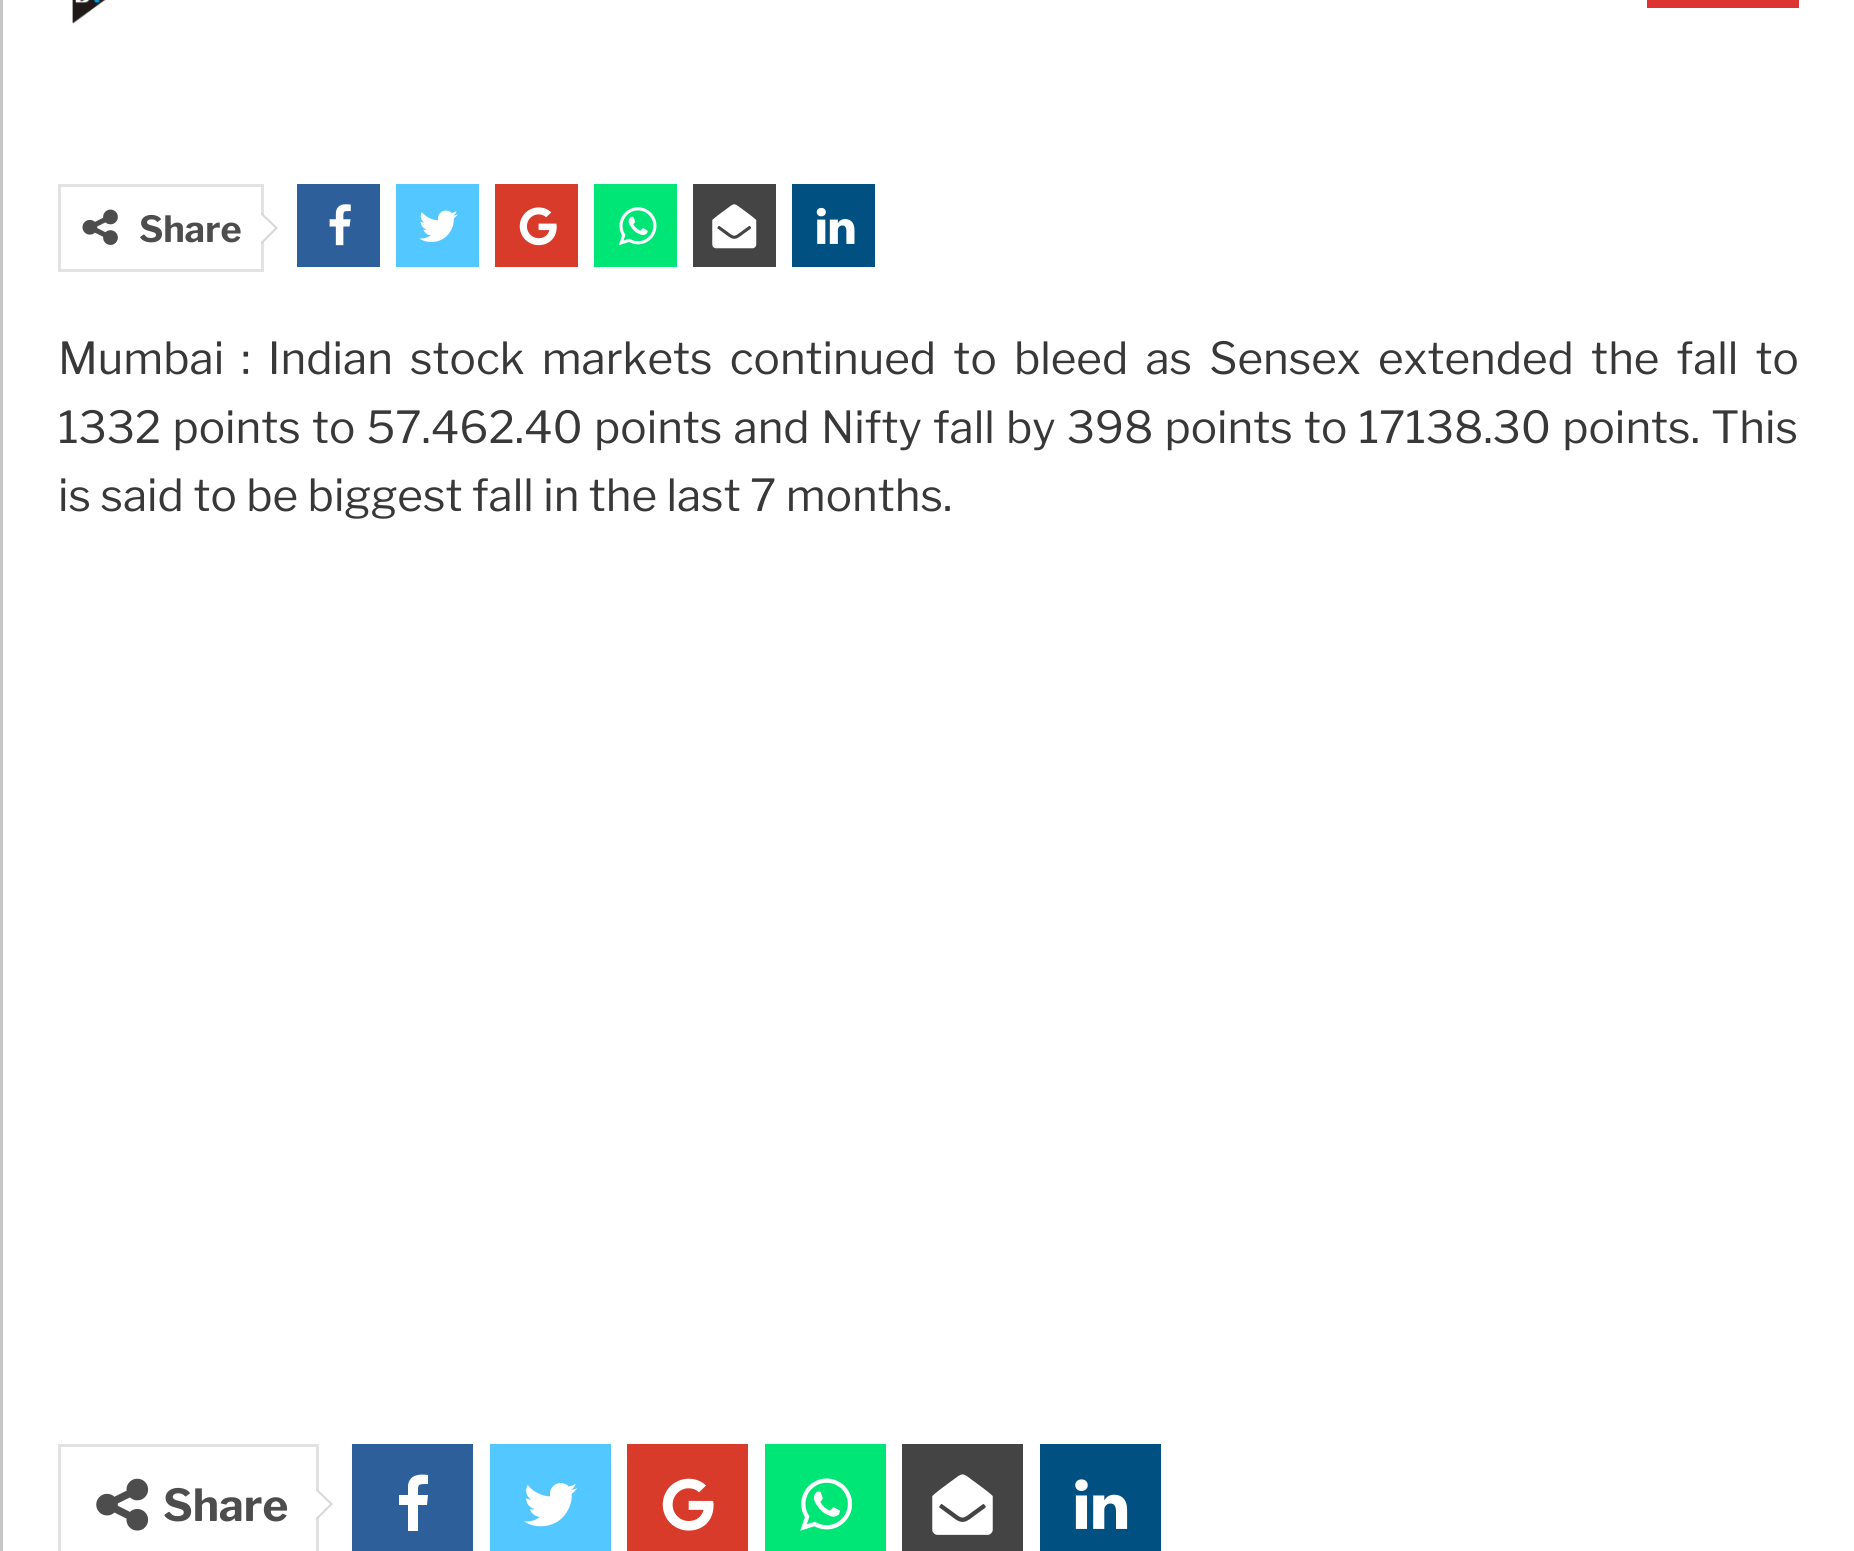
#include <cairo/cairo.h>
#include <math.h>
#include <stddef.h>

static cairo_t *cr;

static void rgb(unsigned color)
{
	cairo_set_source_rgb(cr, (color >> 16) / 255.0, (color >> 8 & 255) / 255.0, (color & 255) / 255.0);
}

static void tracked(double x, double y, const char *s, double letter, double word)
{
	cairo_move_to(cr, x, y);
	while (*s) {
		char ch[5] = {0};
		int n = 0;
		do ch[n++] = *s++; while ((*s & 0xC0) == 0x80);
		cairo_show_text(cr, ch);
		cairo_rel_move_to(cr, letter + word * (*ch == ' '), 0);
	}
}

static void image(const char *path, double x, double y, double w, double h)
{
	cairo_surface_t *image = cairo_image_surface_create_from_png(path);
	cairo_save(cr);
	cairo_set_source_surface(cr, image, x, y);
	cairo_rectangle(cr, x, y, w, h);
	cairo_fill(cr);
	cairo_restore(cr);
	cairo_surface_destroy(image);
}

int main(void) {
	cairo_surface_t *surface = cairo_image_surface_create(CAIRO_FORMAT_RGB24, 1854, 1551);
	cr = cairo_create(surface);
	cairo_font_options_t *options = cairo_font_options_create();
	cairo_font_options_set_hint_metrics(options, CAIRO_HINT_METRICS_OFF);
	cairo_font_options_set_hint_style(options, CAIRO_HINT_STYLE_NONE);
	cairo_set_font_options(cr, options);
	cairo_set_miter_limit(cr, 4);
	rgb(0xffffff);
	cairo_paint(cr);
	rgb(0xc4c6c8);
	cairo_rectangle(cr, 0, 0, 3, 1551);
	cairo_fill(cr);
	image("img/1.png", 72, 0, 34, 24);
	rgb(0xdd3333);
	cairo_rectangle(cr, 1647, 0, 152, 8);
	cairo_fill(cr);
	cairo_rectangle(cr, 59.5, 185.5, 203, 85);
	rgb(0xe2e2e2);
	cairo_set_line_width(cr, 3);
	cairo_stroke(cr);
	image("img/2.png", 82, 209, 36, 36);
	rgb(0xd7d7d7);
	cairo_new_path(cr);
	cairo_move_to(cr, 261, 245);
	cairo_line_to(cr, 261, 212);
	cairo_line_to(cr, 278, 228);
	cairo_close_path(cr);
	cairo_fill(cr);
	rgb(0xffffff);
	cairo_new_path(cr);
	cairo_move_to(cr, 261, 242);
	cairo_line_to(cr, 261, 214.5);
	cairo_line_to(cr, 275, 228);
	cairo_close_path(cr);
	cairo_fill(cr);
	rgb(0x2d5f9a);
	cairo_rectangle(cr, 297, 184, 83, 83);
	cairo_fill(cr);
	image("img/3.png", 329, 204, 22, 42);
	rgb(0x53c7ff);
	cairo_rectangle(cr, 396, 184, 83, 83);
	cairo_fill(cr);
	image("img/4.png", 419, 210, 39, 32);
	rgb(0xd93b2b);
	cairo_rectangle(cr, 495, 184, 83, 83);
	cairo_fill(cr);
	image("img/5.png", 519, 207, 38, 39);
	rgb(0x00e676);
	cairo_rectangle(cr, 594, 184, 83, 83);
	cairo_fill(cr);
	image("img/6.png", 618, 207, 39, 39);
	rgb(0x444444);
	cairo_rectangle(cr, 693, 184, 83, 83);
	cairo_fill(cr);
	image("img/7.png", 712, 204, 45, 45);
	rgb(0x005182);
	cairo_rectangle(cr, 792, 184, 83, 83);
	cairo_fill(cr);
	image("img/8.png", 816, 207, 39, 37);
	cairo_rectangle(cr, 59.5, 1445.5, 258, 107);
	rgb(0xe2e2e2);
	cairo_stroke(cr);
	image("img/9.png", 96, 1478, 53, 53);
	rgb(0xd7d7d7);
	cairo_new_path(cr);
	cairo_move_to(cr, 316, 1521);
	cairo_line_to(cr, 316, 1488);
	cairo_line_to(cr, 333, 1504);
	cairo_close_path(cr);
	cairo_fill(cr);
	rgb(0xffffff);
	cairo_new_path(cr);
	cairo_move_to(cr, 316, 1518);
	cairo_line_to(cr, 316, 1490.5);
	cairo_line_to(cr, 330, 1504);
	cairo_close_path(cr);
	cairo_fill(cr);
	rgb(0x2d5f9a);
	cairo_rectangle(cr, 352, 1444, 121, 107);
	cairo_fill(cr);
	rgb(0xffffff);
	cairo_new_path(cr);
	cairo_move_to(cr, 428, 1475);
	cairo_line_to(cr, 428, 1484);
	cairo_curve_to(cr, 417, 1484, 418, 1484, 418, 1495);
	cairo_line_to(cr, 428, 1495);
	cairo_line_to(cr, 427, 1505);
	cairo_line_to(cr, 418, 1505);
	cairo_line_to(cr, 418, 1531);
	cairo_line_to(cr, 408, 1531);
	cairo_line_to(cr, 408, 1505);
	cairo_line_to(cr, 399, 1505);
	cairo_line_to(cr, 399, 1495);
	cairo_line_to(cr, 408, 1495);
	cairo_line_to(cr, 408, 1485);
	cairo_curve_to(cr, 410, 1474, 420, 1474, 428, 1475);
	cairo_close_path(cr);
	cairo_fill(cr);
	rgb(0x53c7ff);
	cairo_rectangle(cr, 490, 1444, 121, 107);
	cairo_fill(cr);
	image("img/10.png", 524, 1483, 53, 44);
	rgb(0xd93b2b);
	cairo_rectangle(cr, 627, 1444, 121, 107);
	cairo_fill(cr);
	image("img/11.png", 662, 1478, 52, 53);
	rgb(0x00e676);
	cairo_rectangle(cr, 765, 1444, 121, 107);
	cairo_fill(cr);
	image("img/12.png", 800, 1478, 53, 53);
	rgb(0x444444);
	cairo_rectangle(cr, 902, 1444, 121, 107);
	cairo_fill(cr);
	image("img/13.png", 932, 1474, 61, 61);
	rgb(0x005182);
	cairo_rectangle(cr, 1040, 1444, 121, 107);
	cairo_fill(cr);
	image("img/14.png", 1075, 1479, 53, 50);
	cairo_select_font_face(cr, "Libre Franklin", CAIRO_FONT_SLANT_NORMAL, CAIRO_FONT_WEIGHT_BOLD);
	cairo_set_font_size(cr, 36);
	rgb(0x4d4d4d);
	cairo_move_to(cr, 139, 242);
	cairo_show_text(cr, "Share");
	cairo_select_font_face(cr, "Libre Franklin", CAIRO_FONT_SLANT_NORMAL, CAIRO_FONT_WEIGHT_NORMAL);
	cairo_set_font_size(cr, 44);
	rgb(0x383838);
	tracked(58, 374, "Mumbai : Indian stock markets continued to bleed as Sensex extended the fall to", 0, 7.75);
	tracked(58, 443, "1332 points to 57.462.40 points and Nifty fall by 398 points to 17138.30 points. This", 0, 1.75);
	cairo_move_to(cr, 58, 511);
	cairo_show_text(cr, "is said to be biggest fall in the last 7 months.");
	cairo_select_font_face(cr, "Libre Franklin", CAIRO_FONT_SLANT_NORMAL, CAIRO_FONT_WEIGHT_BOLD);
	rgb(0x4d4d4d);
	cairo_move_to(cr, 163, 1521);
	cairo_show_text(cr, "Share");
	cairo_surface_write_to_png(surface, "page.png");
	cairo_font_options_destroy(options);
	cairo_destroy(cr);
	cairo_surface_destroy(surface);
	return 0;
}
